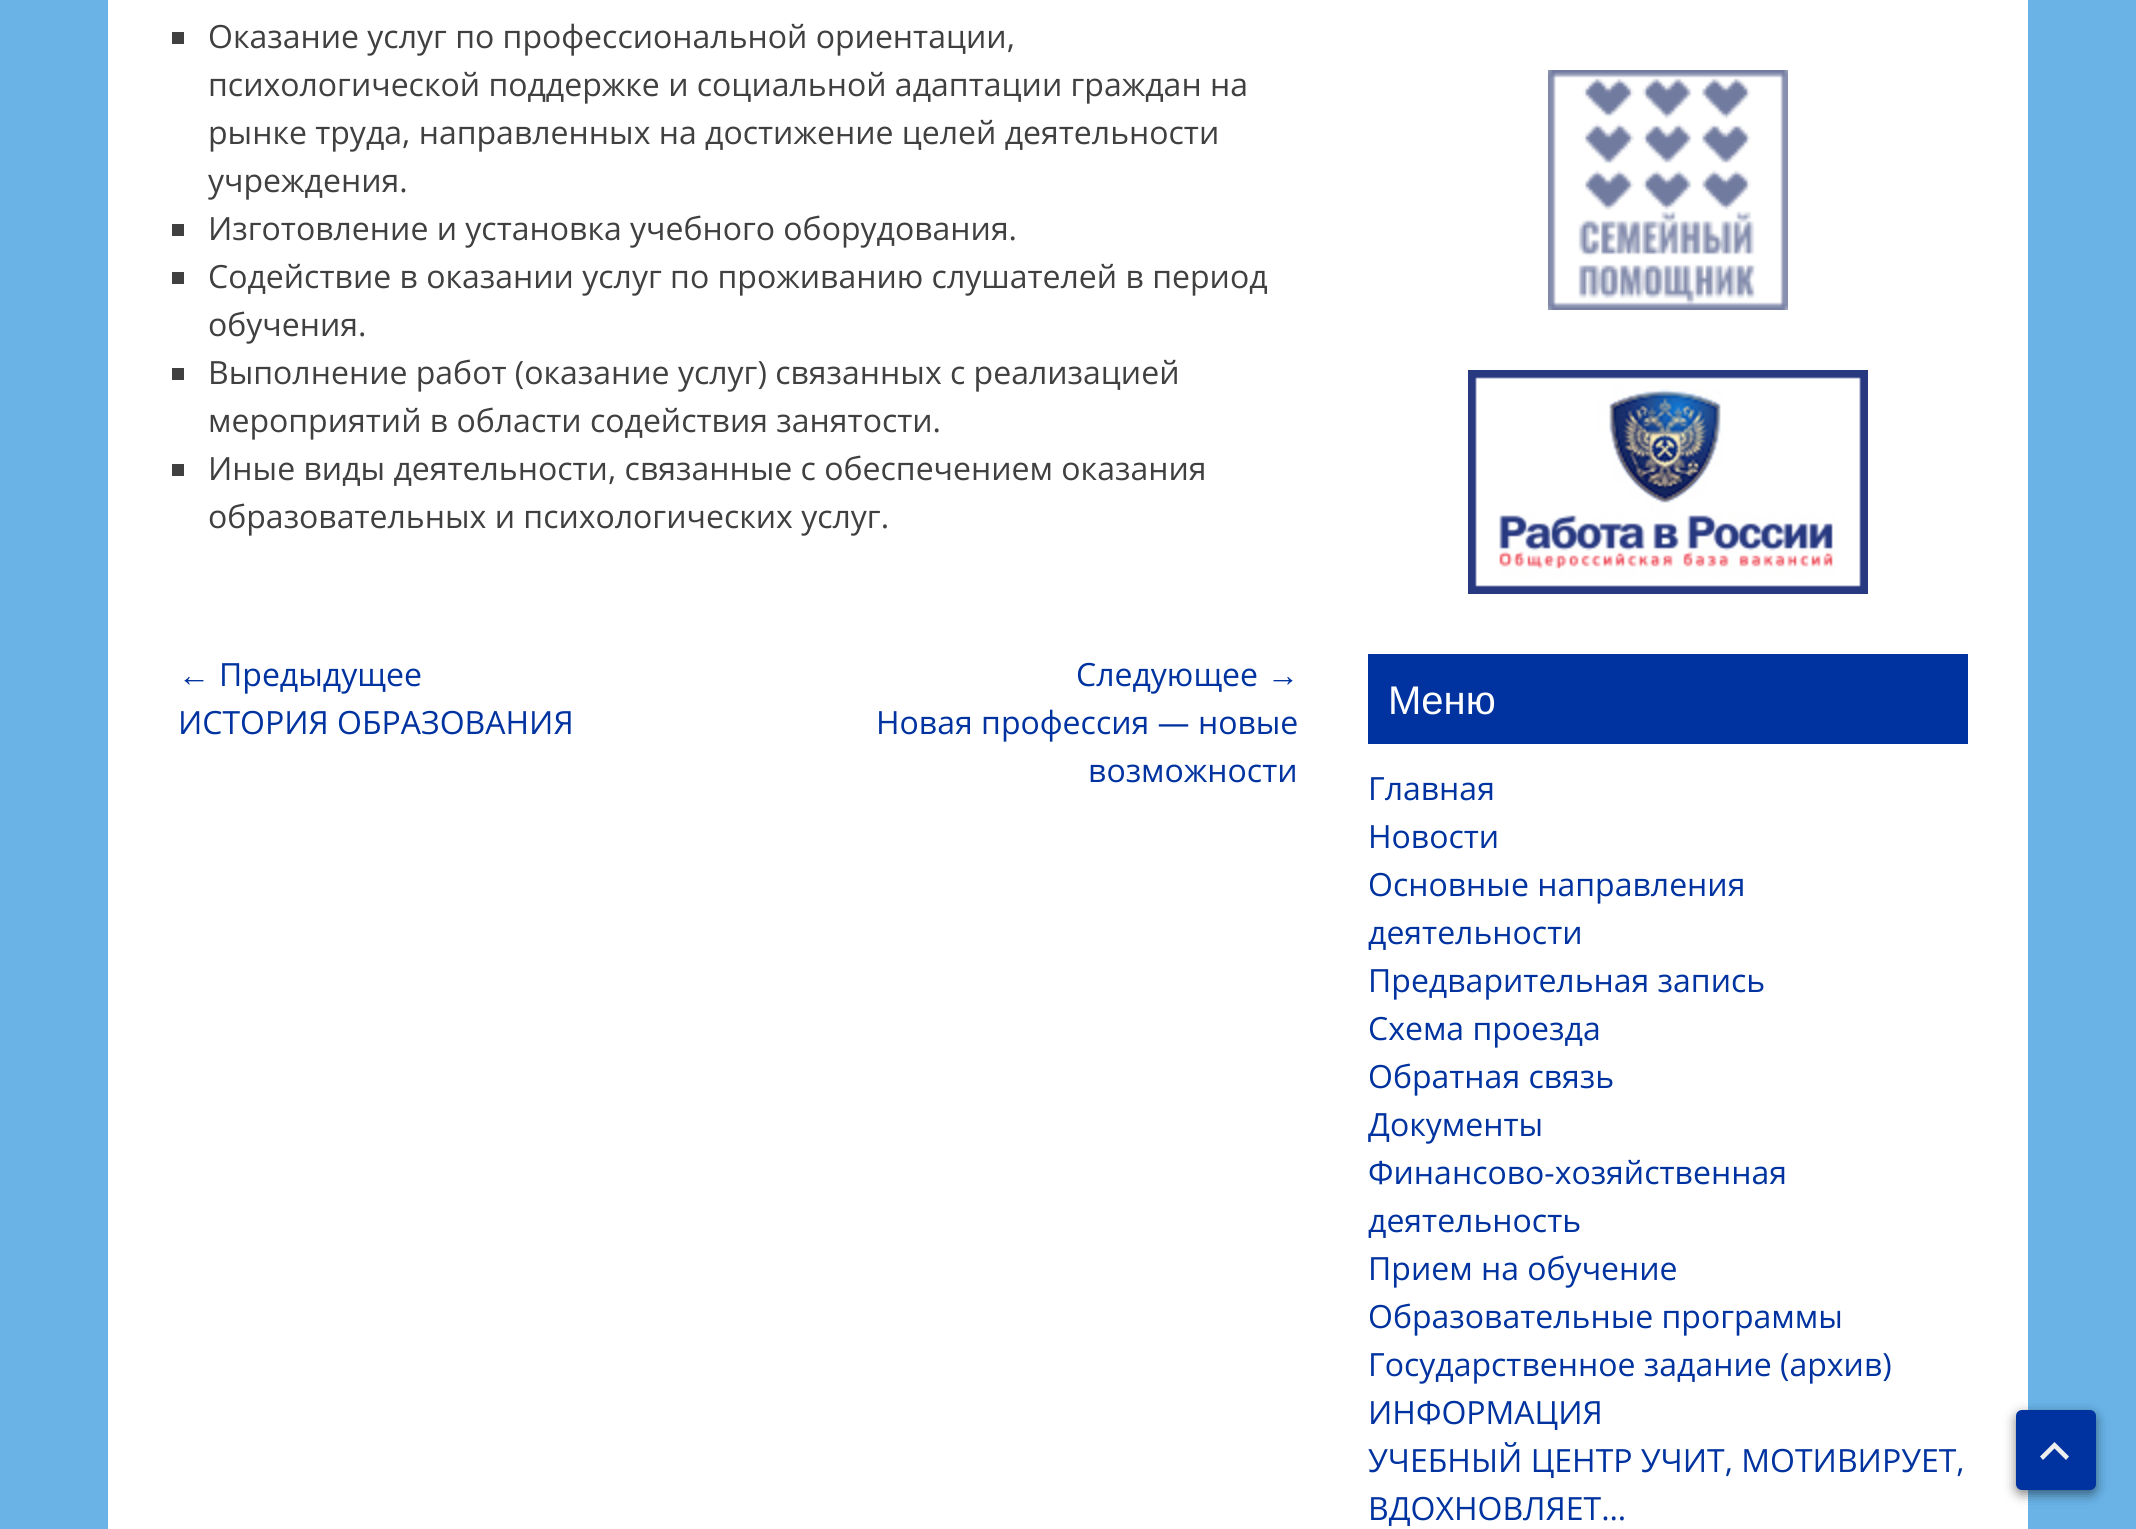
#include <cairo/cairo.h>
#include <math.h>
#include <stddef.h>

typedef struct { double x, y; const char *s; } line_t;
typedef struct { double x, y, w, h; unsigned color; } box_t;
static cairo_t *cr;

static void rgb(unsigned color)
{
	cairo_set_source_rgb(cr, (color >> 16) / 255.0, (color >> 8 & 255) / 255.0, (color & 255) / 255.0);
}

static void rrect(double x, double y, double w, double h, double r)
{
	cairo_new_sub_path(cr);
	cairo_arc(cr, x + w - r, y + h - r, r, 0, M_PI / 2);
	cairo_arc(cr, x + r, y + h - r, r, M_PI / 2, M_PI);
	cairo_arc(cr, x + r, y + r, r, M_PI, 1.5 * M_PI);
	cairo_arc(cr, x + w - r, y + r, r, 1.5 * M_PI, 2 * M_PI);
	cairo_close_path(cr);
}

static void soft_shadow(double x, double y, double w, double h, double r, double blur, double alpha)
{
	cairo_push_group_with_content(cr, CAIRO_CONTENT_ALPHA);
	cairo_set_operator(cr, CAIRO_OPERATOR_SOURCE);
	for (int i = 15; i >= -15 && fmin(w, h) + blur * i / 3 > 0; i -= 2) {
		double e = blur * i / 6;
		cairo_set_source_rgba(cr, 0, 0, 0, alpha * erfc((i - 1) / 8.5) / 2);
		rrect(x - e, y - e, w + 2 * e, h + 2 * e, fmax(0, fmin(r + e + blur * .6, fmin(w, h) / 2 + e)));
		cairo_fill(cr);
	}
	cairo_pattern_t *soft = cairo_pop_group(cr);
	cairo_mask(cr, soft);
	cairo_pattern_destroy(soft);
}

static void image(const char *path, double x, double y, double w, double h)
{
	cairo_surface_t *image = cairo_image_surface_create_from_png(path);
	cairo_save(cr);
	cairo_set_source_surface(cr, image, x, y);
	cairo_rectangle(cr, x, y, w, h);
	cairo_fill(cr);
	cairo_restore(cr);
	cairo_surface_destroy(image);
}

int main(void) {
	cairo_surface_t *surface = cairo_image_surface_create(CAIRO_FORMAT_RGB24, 2136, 1529);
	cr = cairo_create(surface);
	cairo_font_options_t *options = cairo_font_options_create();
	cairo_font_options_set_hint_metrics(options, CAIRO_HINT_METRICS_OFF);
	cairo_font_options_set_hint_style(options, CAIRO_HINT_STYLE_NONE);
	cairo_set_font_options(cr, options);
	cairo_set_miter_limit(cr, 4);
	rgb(0x69b3e7);
	cairo_paint(cr);
	{
		static const box_t items[] = {
			{108, 0, 1920, 1529, 0xffffff},
			{172, 32, 12, 12, 0x404040},
			{172, 224, 12, 12, 0x404040},
			{172, 272, 12, 12, 0x404040},
			{172, 368, 12, 12, 0x404040},
			{172, 464, 12, 12, 0x404040},
		};
		for (size_t i = 0; i < sizeof items / sizeof *items; i++) {
			rgb(items[i].color);
			cairo_rectangle(cr, items[i].x, items[i].y, items[i].w, items[i].h);
			cairo_fill(cr);
		}
	}
	image("img/1.png", 1548, 70, 240, 240);
	image("img/2.png", 1468, 370, 400, 224);
	rgb(0x0033a0);
	cairo_rectangle(cr, 1368, 654, 600, 90);
	cairo_fill(cr);
	rgb(0x000000);
	soft_shadow(2016, 1414, 80, 80, 6, 6, 0.5);
	rgb(0x0033a0);
	rrect(2016, 1410, 80, 80, 6);
	cairo_fill(cr);
	rgb(0xeeeeee);
	cairo_new_path(cr);
	cairo_move_to(cr, 2066, 1460);
	cairo_line_to(cr, 2054.5, 1448.5);
	cairo_line_to(cr, 2043, 1460);
	cairo_line_to(cr, 2040, 1456.5);
	cairo_line_to(cr, 2054.5, 1442);
	cairo_line_to(cr, 2069, 1456.5);
	cairo_close_path(cr);
	cairo_fill(cr);
	cairo_select_font_face(cr, "Open Sans", CAIRO_FONT_SLANT_NORMAL, CAIRO_FONT_WEIGHT_NORMAL);
	cairo_set_font_size(cr, 32);
	rgb(0x404040);
	{
		static const line_t items[] = {
			{208, 48, "Оказание услуг по профессиональной ориентации,"},
			{208, 96, "психологической поддержке и социальной адаптации граждан на"},
			{208, 144, "рынке труда, направленных на достижение целей деятельности"},
			{208, 192, "учреждения."},
			{208, 240, "Изготовление и установка учебного оборудования."},
			{208, 288, "Содействие в оказании услуг по проживанию слушателей в период"},
			{208, 336, "обучения."},
			{208, 384, "Выполнение работ (оказание услуг) связанных с реализацией"},
			{208, 432, "мероприятий в области содействия занятости."},
			{208, 480, "Иные виды деятельности, связанные с обеспечением оказания"},
			{208, 528, "образовательных и психологических услуг."},
		};
		for (size_t i = 0; i < sizeof items / sizeof *items; i++) {
			cairo_move_to(cr, items[i].x, items[i].y);
			cairo_show_text(cr, items[i].s);
		}
	}
	cairo_select_font_face(cr, "Liberation Sans", CAIRO_FONT_SLANT_NORMAL, CAIRO_FONT_WEIGHT_NORMAL);
	rgb(0x0033a0);
	cairo_move_to(cr, 178, 686);
	cairo_show_text(cr, "←");
	cairo_select_font_face(cr, "Open Sans", CAIRO_FONT_SLANT_NORMAL, CAIRO_FONT_WEIGHT_NORMAL);
	{
		static const line_t items[] = {
			{219, 686, "Предыдущее"},
			{178, 734, "ИСТОРИЯ ОБРАЗОВАНИЯ"},
			{1076, 686, "Следующее"},
		};
		for (size_t i = 0; i < sizeof items / sizeof *items; i++) {
			cairo_move_to(cr, items[i].x, items[i].y);
			cairo_show_text(cr, items[i].s);
		}
	}
	cairo_select_font_face(cr, "Liberation Sans", CAIRO_FONT_SLANT_NORMAL, CAIRO_FONT_WEIGHT_NORMAL);
	cairo_move_to(cr, 1267, 686);
	cairo_show_text(cr, "→");
	cairo_select_font_face(cr, "Open Sans", CAIRO_FONT_SLANT_NORMAL, CAIRO_FONT_WEIGHT_NORMAL);
	cairo_move_to(cr, 876, 734);
	cairo_show_text(cr, "Новая профессия — новые");
	cairo_move_to(cr, 1088, 782);
	cairo_show_text(cr, "возможности");
	cairo_select_font_face(cr, "Liberation Sans", CAIRO_FONT_SLANT_NORMAL, CAIRO_FONT_WEIGHT_NORMAL);
	cairo_set_font_size(cr, 40);
	rgb(0xffffff);
	cairo_move_to(cr, 1388, 714);
	cairo_show_text(cr, "Меню");
	cairo_select_font_face(cr, "Open Sans", CAIRO_FONT_SLANT_NORMAL, CAIRO_FONT_WEIGHT_NORMAL);
	cairo_set_font_size(cr, 32);
	rgb(0x0033a0);
	{
		static const line_t items[] = {
			{1368, 800, "Главная"},
			{1368, 848, "Новости"},
			{1368, 896, "Основные направления"},
			{1368, 944, "деятельности"},
			{1368, 992, "Предварительная запись"},
			{1368, 1040, "Схема проезда"},
			{1368, 1088, "Обратная связь"},
			{1368, 1136, "Документы"},
			{1368, 1184, "Финансово-хозяйственная"},
			{1368, 1232, "деятельность"},
			{1368, 1280, "Прием на обучение"},
			{1368, 1328, "Образовательные программы"},
			{1368, 1376, "Государственное задание (архив)"},
			{1368, 1424, "ИНФОРМАЦИЯ"},
			{1368, 1472, "УЧЕБНЫЙ ЦЕНТР УЧИТ, МОТИВИРУЕТ,"},
			{1368, 1520, "ВДОХНОВЛЯЕТ…"},
		};
		for (size_t i = 0; i < sizeof items / sizeof *items; i++) {
			cairo_move_to(cr, items[i].x, items[i].y);
			cairo_show_text(cr, items[i].s);
		}
	}
	cairo_surface_write_to_png(surface, "page.png");
	cairo_font_options_destroy(options);
	cairo_destroy(cr);
	cairo_surface_destroy(surface);
	return 0;
}
